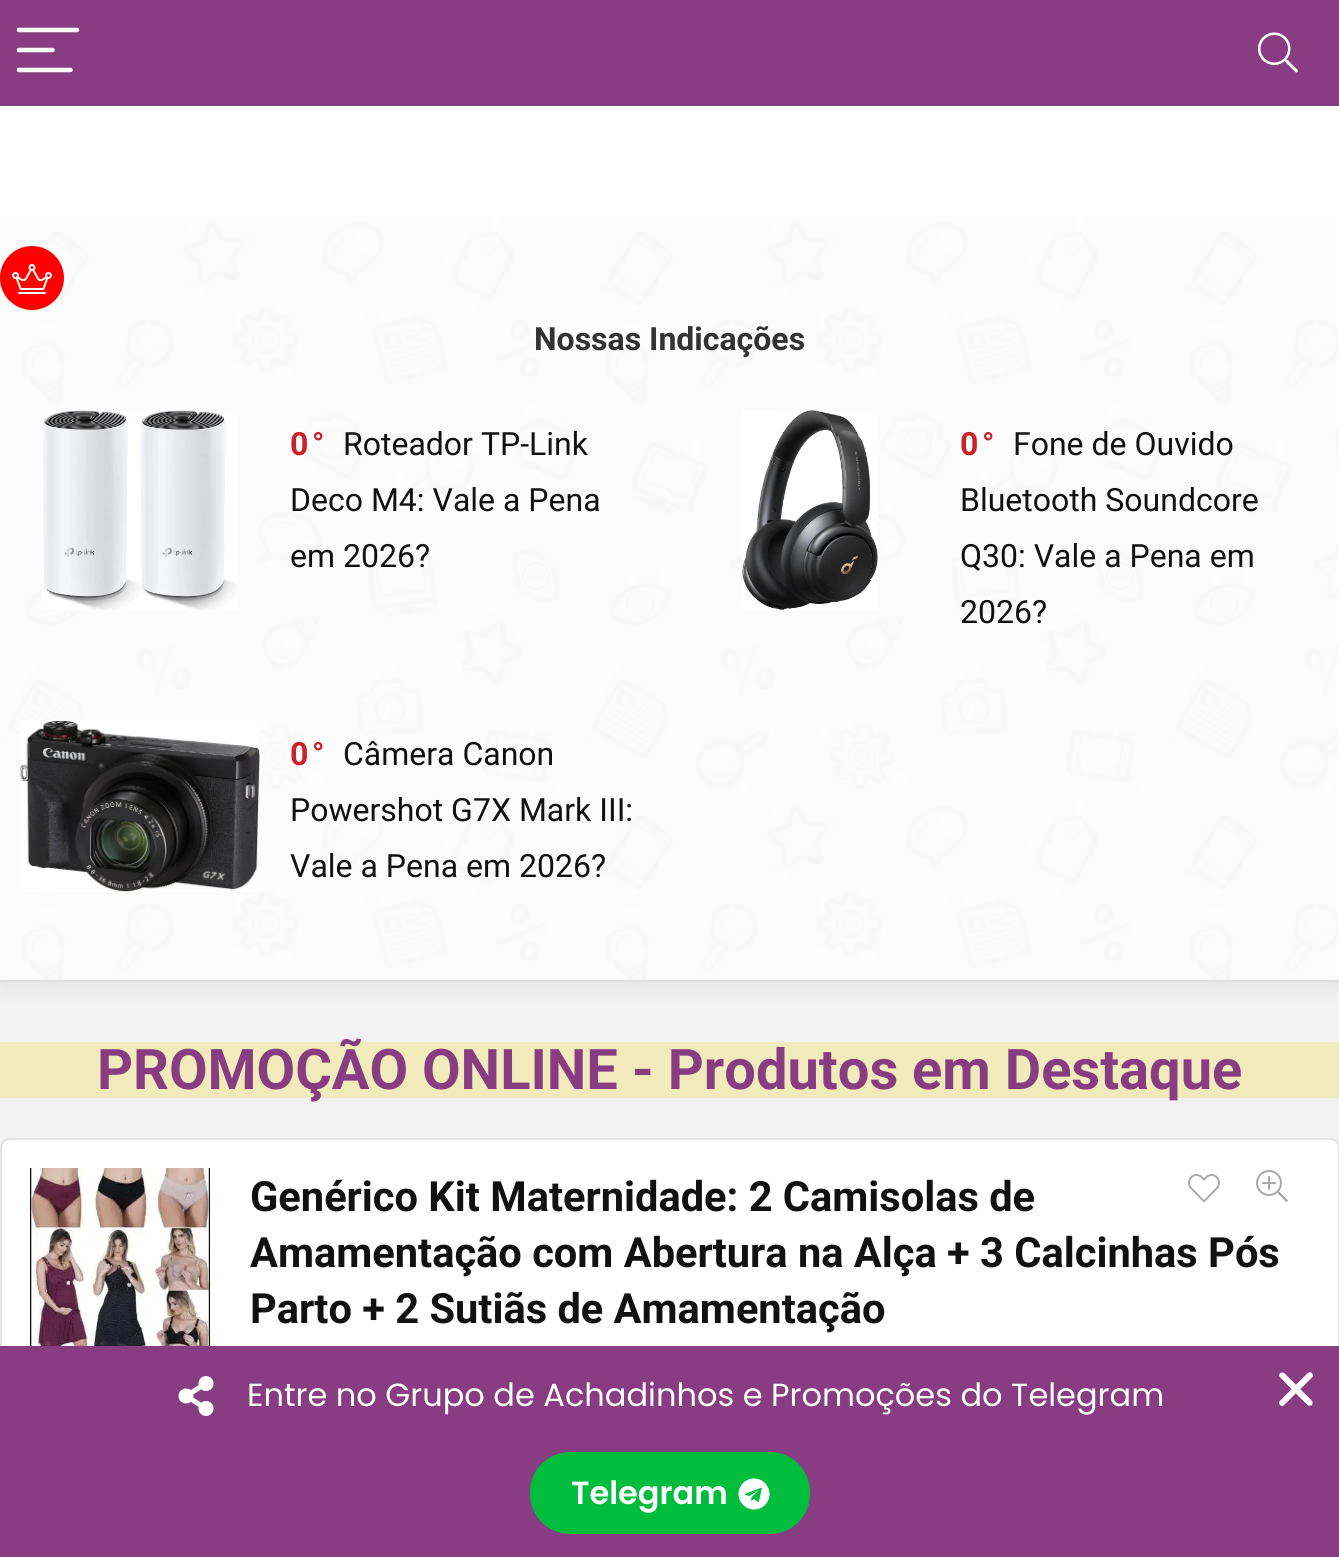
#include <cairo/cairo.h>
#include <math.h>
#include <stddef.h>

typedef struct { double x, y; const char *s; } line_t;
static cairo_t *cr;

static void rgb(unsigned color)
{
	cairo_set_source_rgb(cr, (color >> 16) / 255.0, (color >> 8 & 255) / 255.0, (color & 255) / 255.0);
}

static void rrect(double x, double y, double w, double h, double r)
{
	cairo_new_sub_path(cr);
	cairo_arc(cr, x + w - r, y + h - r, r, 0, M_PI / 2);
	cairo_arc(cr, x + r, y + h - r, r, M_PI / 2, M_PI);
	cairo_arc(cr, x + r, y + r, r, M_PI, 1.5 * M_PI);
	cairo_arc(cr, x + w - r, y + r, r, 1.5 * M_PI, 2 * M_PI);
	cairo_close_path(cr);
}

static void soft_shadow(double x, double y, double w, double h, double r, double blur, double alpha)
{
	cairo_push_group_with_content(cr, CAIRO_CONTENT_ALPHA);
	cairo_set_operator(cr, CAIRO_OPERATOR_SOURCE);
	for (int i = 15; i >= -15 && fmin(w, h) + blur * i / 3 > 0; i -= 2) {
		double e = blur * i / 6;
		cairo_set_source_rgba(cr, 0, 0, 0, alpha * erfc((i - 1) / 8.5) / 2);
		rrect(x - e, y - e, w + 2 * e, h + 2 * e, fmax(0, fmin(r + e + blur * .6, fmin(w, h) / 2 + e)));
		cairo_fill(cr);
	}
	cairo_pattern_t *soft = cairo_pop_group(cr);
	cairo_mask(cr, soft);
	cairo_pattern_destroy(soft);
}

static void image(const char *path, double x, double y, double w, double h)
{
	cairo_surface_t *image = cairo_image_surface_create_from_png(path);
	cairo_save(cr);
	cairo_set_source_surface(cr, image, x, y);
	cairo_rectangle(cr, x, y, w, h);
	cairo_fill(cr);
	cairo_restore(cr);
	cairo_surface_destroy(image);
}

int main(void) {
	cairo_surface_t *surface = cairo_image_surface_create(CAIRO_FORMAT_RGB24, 1339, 1557);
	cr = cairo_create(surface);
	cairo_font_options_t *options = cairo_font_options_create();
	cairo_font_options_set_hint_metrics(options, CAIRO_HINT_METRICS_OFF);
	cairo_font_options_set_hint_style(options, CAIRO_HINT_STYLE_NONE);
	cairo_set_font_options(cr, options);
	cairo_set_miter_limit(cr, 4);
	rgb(0xf2f2f2);
	cairo_paint(cr);
	rgb(0x883d82);
	cairo_rectangle(cr, 0, 0, 1339, 106);
	cairo_fill(cr);
	cairo_new_path(cr);
	cairo_move_to(cr, 19, 30);
	cairo_line_to(cr, 77, 30);
	rgb(0xffffff);
	cairo_set_line_width(cr, 4.5);
	cairo_set_line_cap(cr, CAIRO_LINE_CAP_ROUND);
	cairo_stroke(cr);
	cairo_new_path(cr);
	cairo_move_to(cr, 19, 50);
	cairo_line_to(cr, 52.5, 50);
	cairo_move_to(cr, 19, 70);
	cairo_line_to(cr, 70.5, 70);
	cairo_stroke(cr);
	image("img/1.png", 1258, 32, 40, 41);
	rgb(0x000000);
	soft_shadow(0, 222, 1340, 766, 0, 10, 0.05);
	rgb(0xffffff);
	cairo_rectangle(cr, 0, 106, 1339, 110);
	cairo_fill(cr);
	image("img/2.png", 0, 216, 1339, 764);
	rgb(0xdddddd);
	cairo_rectangle(cr, 0, 980, 1339, 2);
	cairo_fill(cr);
	rgb(0xff0000);
	cairo_arc(cr, 32, 278, 32, 0, 2 * M_PI);
	cairo_fill(cr);
	image("img/3.png", 12, 264, 40, 30);
	image("img/4.png", 42, 410, 196, 200);
	image("img/5.png", 742, 410, 136, 200);
	image("img/6.png", 20, 720, 240, 172);
	rgb(0xf1ebbb);
	cairo_rectangle(cr, 0, 1042, 1339, 56);
	cairo_fill(cr);
	rgb(0xffffff);
	rrect(1, 1139, 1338, 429, 9);
	cairo_fill_preserve(cr);
	rgb(0xe3e3e3);
	cairo_set_line_width(cr, 2);
	cairo_set_line_cap(cr, CAIRO_LINE_CAP_BUTT);
	cairo_stroke(cr);
	image("img/7.png", 1188, 1174, 32, 28);
	image("img/8.png", 1256, 1170, 32, 32);
	image("img/9.png", 30, 1168, 180, 178);
	rgb(0x883d82);
	cairo_rectangle(cr, 0, 1346, 1339, 211);
	cairo_fill(cr);
	image("img/10.png", 178, 1376, 36, 40);
	image("img/11.png", 1279, 1372, 34, 34);
	rgb(0x00bd3d);
	rrect(530, 1452, 280, 82, 40);
	cairo_fill(cr);
	image("img/12.png", 738, 1478, 32, 32);
	cairo_select_font_face(cr, "Roboto", CAIRO_FONT_SLANT_NORMAL, CAIRO_FONT_WEIGHT_BOLD);
	cairo_set_font_size(cr, 32);
	rgb(0x333333);
	cairo_move_to(cr, 534, 350);
	cairo_show_text(cr, "Nossas Indicações");
	rgb(0xca212a);
	cairo_move_to(cr, 290, 455);
	cairo_show_text(cr, "0");
	cairo_move_to(cr, 312, 455);
	cairo_show_text(cr, "°");
	cairo_select_font_face(cr, "Roboto", CAIRO_FONT_SLANT_NORMAL, CAIRO_FONT_WEIGHT_NORMAL);
	rgb(0x111111);
	{
		static const line_t items[] = {
			{343, 455, "Roteador TP-Link"},
			{290, 511, "Deco M4: Vale a Pena"},
			{290, 567, "em 2026?"},
		};
		for (size_t i = 0; i < sizeof items / sizeof *items; i++) {
			cairo_move_to(cr, items[i].x, items[i].y);
			cairo_show_text(cr, items[i].s);
		}
	}
	cairo_select_font_face(cr, "Roboto", CAIRO_FONT_SLANT_NORMAL, CAIRO_FONT_WEIGHT_BOLD);
	rgb(0xca212a);
	cairo_move_to(cr, 960, 455);
	cairo_show_text(cr, "0");
	cairo_move_to(cr, 982, 455);
	cairo_show_text(cr, "°");
	cairo_select_font_face(cr, "Roboto", CAIRO_FONT_SLANT_NORMAL, CAIRO_FONT_WEIGHT_NORMAL);
	rgb(0x111111);
	{
		static const line_t items[] = {
			{1013, 455, "Fone de Ouvido"},
			{960, 511, "Bluetooth Soundcore"},
			{960, 567, "Q30: Vale a Pena em"},
			{960, 623, "2026?"},
		};
		for (size_t i = 0; i < sizeof items / sizeof *items; i++) {
			cairo_move_to(cr, items[i].x, items[i].y);
			cairo_show_text(cr, items[i].s);
		}
	}
	cairo_select_font_face(cr, "Roboto", CAIRO_FONT_SLANT_NORMAL, CAIRO_FONT_WEIGHT_BOLD);
	rgb(0xca212a);
	cairo_move_to(cr, 290, 765);
	cairo_show_text(cr, "0");
	cairo_move_to(cr, 312, 765);
	cairo_show_text(cr, "°");
	cairo_select_font_face(cr, "Roboto", CAIRO_FONT_SLANT_NORMAL, CAIRO_FONT_WEIGHT_NORMAL);
	rgb(0x111111);
	{
		static const line_t items[] = {
			{343, 765, "Câmera Canon"},
			{290, 821, "Powershot G7X Mark III:"},
			{290, 877, "Vale a Pena em 2026?"},
		};
		for (size_t i = 0; i < sizeof items / sizeof *items; i++) {
			cairo_move_to(cr, items[i].x, items[i].y);
			cairo_show_text(cr, items[i].s);
		}
	}
	cairo_select_font_face(cr, "Roboto", CAIRO_FONT_SLANT_NORMAL, CAIRO_FONT_WEIGHT_BOLD);
	cairo_set_font_size(cr, 56);
	rgb(0x883d82);
	cairo_move_to(cr, 97, 1089);
	cairo_show_text(cr, "PROMOÇÃO ONLINE - Produtos em Destaque");
	cairo_set_font_size(cr, 41.6);
	rgb(0x111111);
	{
		static const line_t items[] = {
			{250, 1211, "Genérico Kit Maternidade: 2 Camisolas de"},
			{250, 1267, "Amamentação com Abertura na Alça + 3 Calcinhas Pós"},
			{250, 1323, "Parto + 2 Sutiãs de Amamentação"},
		};
		for (size_t i = 0; i < sizeof items / sizeof *items; i++) {
			cairo_move_to(cr, items[i].x, items[i].y);
			cairo_show_text(cr, items[i].s);
		}
	}
	cairo_select_font_face(cr, "Poppins", CAIRO_FONT_SLANT_NORMAL, CAIRO_FONT_WEIGHT_NORMAL);
	cairo_set_font_size(cr, 32);
	rgb(0xffffff);
	cairo_move_to(cr, 247, 1406);
	cairo_show_text(cr, "Entre no Grupo de Achadinhos e Promoções do Telegram");
	cairo_select_font_face(cr, "Poppins SemiBold", CAIRO_FONT_SLANT_NORMAL, CAIRO_FONT_WEIGHT_NORMAL);
	cairo_move_to(cr, 571, 1504);
	cairo_show_text(cr, "Telegram");
	cairo_surface_write_to_png(surface, "page.png");
	cairo_font_options_destroy(options);
	cairo_destroy(cr);
	cairo_surface_destroy(surface);
	return 0;
}
